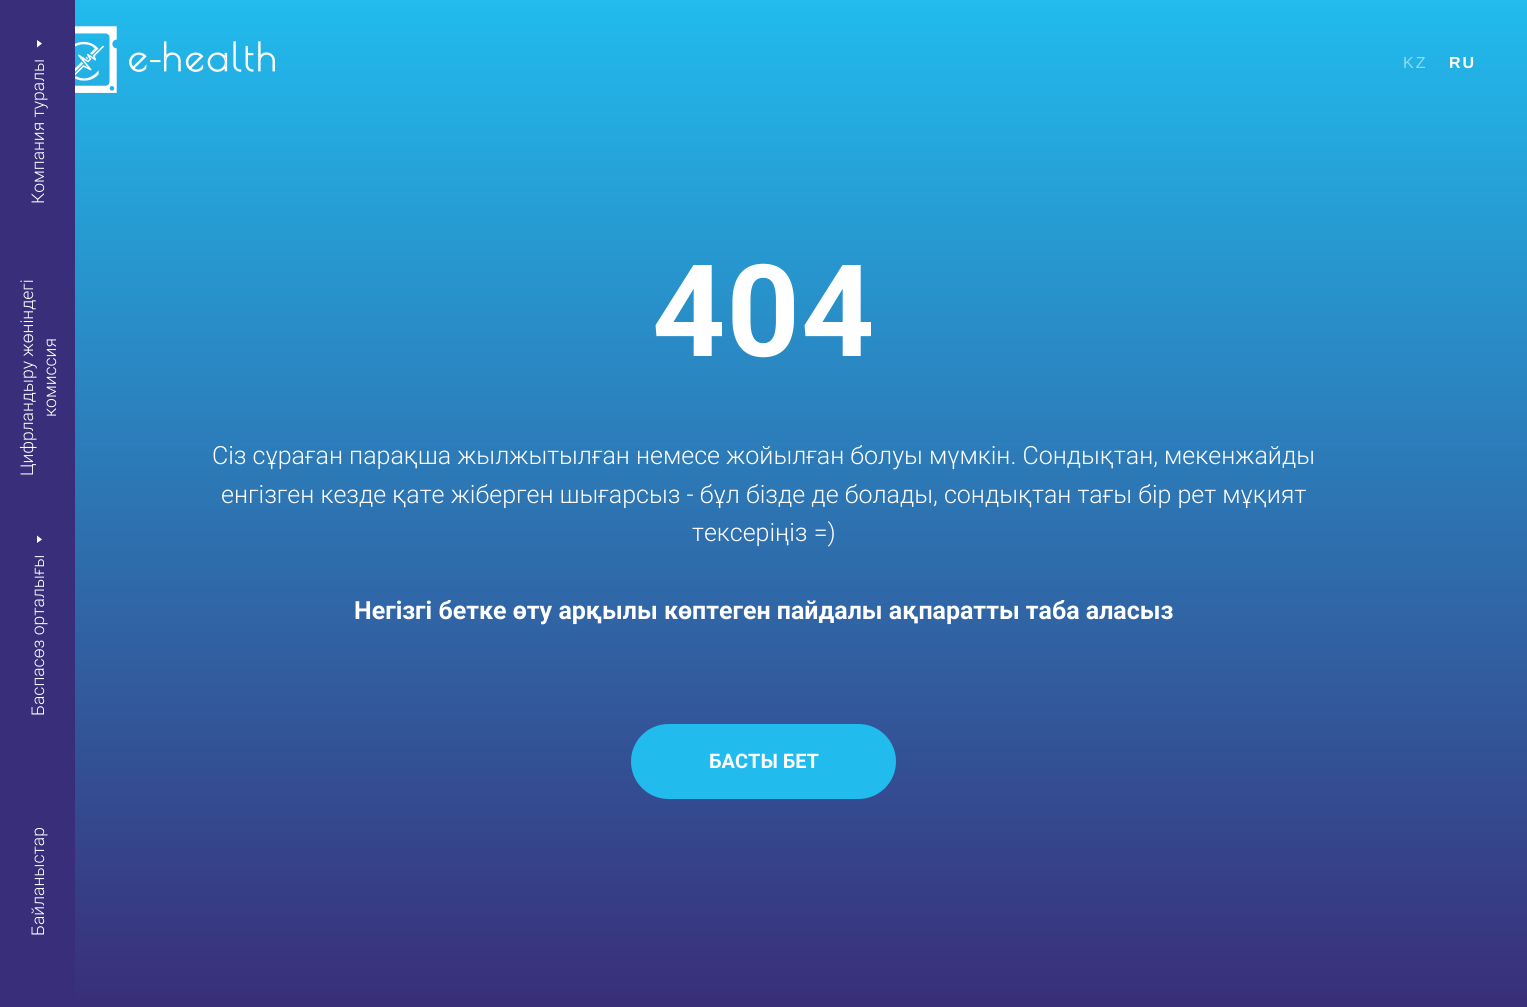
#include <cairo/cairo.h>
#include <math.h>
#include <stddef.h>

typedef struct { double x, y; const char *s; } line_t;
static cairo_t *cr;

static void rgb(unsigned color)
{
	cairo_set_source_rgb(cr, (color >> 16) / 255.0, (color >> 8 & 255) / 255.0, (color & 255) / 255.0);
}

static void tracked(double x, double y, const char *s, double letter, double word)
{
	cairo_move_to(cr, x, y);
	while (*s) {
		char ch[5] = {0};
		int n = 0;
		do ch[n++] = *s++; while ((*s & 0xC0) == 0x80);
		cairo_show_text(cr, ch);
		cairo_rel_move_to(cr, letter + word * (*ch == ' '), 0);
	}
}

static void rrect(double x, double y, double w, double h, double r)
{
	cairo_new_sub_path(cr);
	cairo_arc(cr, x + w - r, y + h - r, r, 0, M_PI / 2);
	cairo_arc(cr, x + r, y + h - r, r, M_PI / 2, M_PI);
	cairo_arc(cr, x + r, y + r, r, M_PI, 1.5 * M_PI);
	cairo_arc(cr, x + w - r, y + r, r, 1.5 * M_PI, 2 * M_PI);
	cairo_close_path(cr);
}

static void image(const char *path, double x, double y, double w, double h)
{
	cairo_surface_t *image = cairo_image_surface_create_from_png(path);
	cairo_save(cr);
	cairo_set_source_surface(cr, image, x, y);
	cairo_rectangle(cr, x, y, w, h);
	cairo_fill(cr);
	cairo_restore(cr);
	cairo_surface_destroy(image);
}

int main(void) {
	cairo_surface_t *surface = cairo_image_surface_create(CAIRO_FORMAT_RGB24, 1527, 1007);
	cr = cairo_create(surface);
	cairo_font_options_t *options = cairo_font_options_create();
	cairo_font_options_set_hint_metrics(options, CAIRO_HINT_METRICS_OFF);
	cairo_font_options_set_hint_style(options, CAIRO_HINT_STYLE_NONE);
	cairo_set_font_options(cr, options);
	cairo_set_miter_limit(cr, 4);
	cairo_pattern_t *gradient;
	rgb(0xffffff);
	cairo_paint(cr);
	rgb(0x392e79);
	cairo_rectangle(cr, 0, 0, 75, 1007);
	cairo_fill(cr);
	rgb(0xffffff);
	cairo_new_path(cr);
	cairo_move_to(cr, 37, 47.5);
	cairo_line_to(cr, 37, 40);
	cairo_line_to(cr, 42, 43.5);
	cairo_close_path(cr);
	cairo_fill(cr);
	cairo_new_path(cr);
	cairo_move_to(cr, 37, 543);
	cairo_line_to(cr, 37, 535.5);
	cairo_line_to(cr, 42, 539.5);
	cairo_close_path(cr);
	cairo_fill(cr);
	gradient = cairo_pattern_create_linear(764, 0, 764, 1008);
	cairo_pattern_add_color_stop_rgba(gradient, 0, 0.129, 0.733, 0.929, 1);
	cairo_pattern_add_color_stop_rgba(gradient, 1, 0.224, 0.18, 0.471, 1);
	cairo_set_source(cr, gradient);
	cairo_pattern_destroy(gradient);
	cairo_rectangle(cr, 75, 0, 1452, 1007);
	cairo_fill(cr);
	image("img/1.png", 75, 26, 200, 67);
	rgb(0x21bbed);
	rrect(631, 724, 265, 75, 37.5);
	cairo_fill(cr);
	cairo_select_font_face(cr, "Roboto Light", CAIRO_FONT_SLANT_NORMAL, CAIRO_FONT_WEIGHT_NORMAL);
	cairo_set_font_size(cr, 17.5);
	rgb(0xffffff);
	cairo_save(cr);
	cairo_translate(cr, 44, 204);
	cairo_rotate(cr, -90 * M_PI / 180);
	cairo_move_to(cr, 0, 0);
	cairo_show_text(cr, "Компания туралы");
	cairo_restore(cr);
	cairo_save(cr);
	cairo_translate(cr, 33, 476);
	cairo_rotate(cr, -90 * M_PI / 180);
	cairo_move_to(cr, 0, 0);
	cairo_show_text(cr, "Цифрландыру жөніндегі");
	cairo_restore(cr);
	cairo_save(cr);
	cairo_translate(cr, 56, 417);
	cairo_rotate(cr, -90 * M_PI / 180);
	cairo_move_to(cr, 0, 0);
	cairo_show_text(cr, "комиссия");
	cairo_restore(cr);
	cairo_save(cr);
	cairo_translate(cr, 44, 716);
	cairo_rotate(cr, -90 * M_PI / 180);
	cairo_move_to(cr, 0, 0);
	cairo_show_text(cr, "Баспасөз орталығы");
	cairo_restore(cr);
	cairo_save(cr);
	cairo_translate(cr, 44, 936);
	cairo_rotate(cr, -90 * M_PI / 180);
	cairo_move_to(cr, 0, 0);
	cairo_show_text(cr, "Байланыстар");
	cairo_restore(cr);
	cairo_select_font_face(cr, "Liberation Sans", CAIRO_FONT_SLANT_NORMAL, CAIRO_FONT_WEIGHT_NORMAL);
	cairo_set_font_size(cr, 16);
	rgb(0x91d9f2);
	tracked(1403, 68, "KZ", 2, 0);
	cairo_select_font_face(cr, "Liberation Sans", CAIRO_FONT_SLANT_NORMAL, CAIRO_FONT_WEIGHT_BOLD);
	rgb(0xffffff);
	tracked(1449, 68, "RU", 2, 0);
	cairo_select_font_face(cr, "Roboto", CAIRO_FONT_SLANT_NORMAL, CAIRO_FONT_WEIGHT_BOLD);
	cairo_set_font_size(cr, 128);
	tracked(652, 356, "404", 1, 0);
	cairo_select_font_face(cr, "Roboto Light", CAIRO_FONT_SLANT_NORMAL, CAIRO_FONT_WEIGHT_NORMAL);
	cairo_set_font_size(cr, 25);
	{
		static const line_t items[] = {
			{212, 464, "Сіз сұраған парақша жылжытылған немесе жойылған болуы мүмкін. Сондықтан, мекенжайды"},
			{221, 503, "енгізген кезде қате жіберген шығарсыз - бұл бізде де болады, сондықтан тағы бір рет мұқият"},
			{692, 541, "тексеріңіз =)"},
		};
		for (size_t i = 0; i < sizeof items / sizeof *items; i++) {
			cairo_move_to(cr, items[i].x, items[i].y);
			cairo_show_text(cr, items[i].s);
		}
	}
	cairo_select_font_face(cr, "Roboto", CAIRO_FONT_SLANT_NORMAL, CAIRO_FONT_WEIGHT_BOLD);
	cairo_move_to(cr, 354, 619);
	cairo_show_text(cr, "Негізгі бетке өту арқылы көптеген пайдалы ақпаратты таба аласыз");
	cairo_set_font_size(cr, 20);
	cairo_move_to(cr, 709, 768);
	cairo_show_text(cr, "БАСТЫ БЕТ");
	cairo_surface_write_to_png(surface, "page.png");
	cairo_font_options_destroy(options);
	cairo_destroy(cr);
	cairo_surface_destroy(surface);
	return 0;
}
